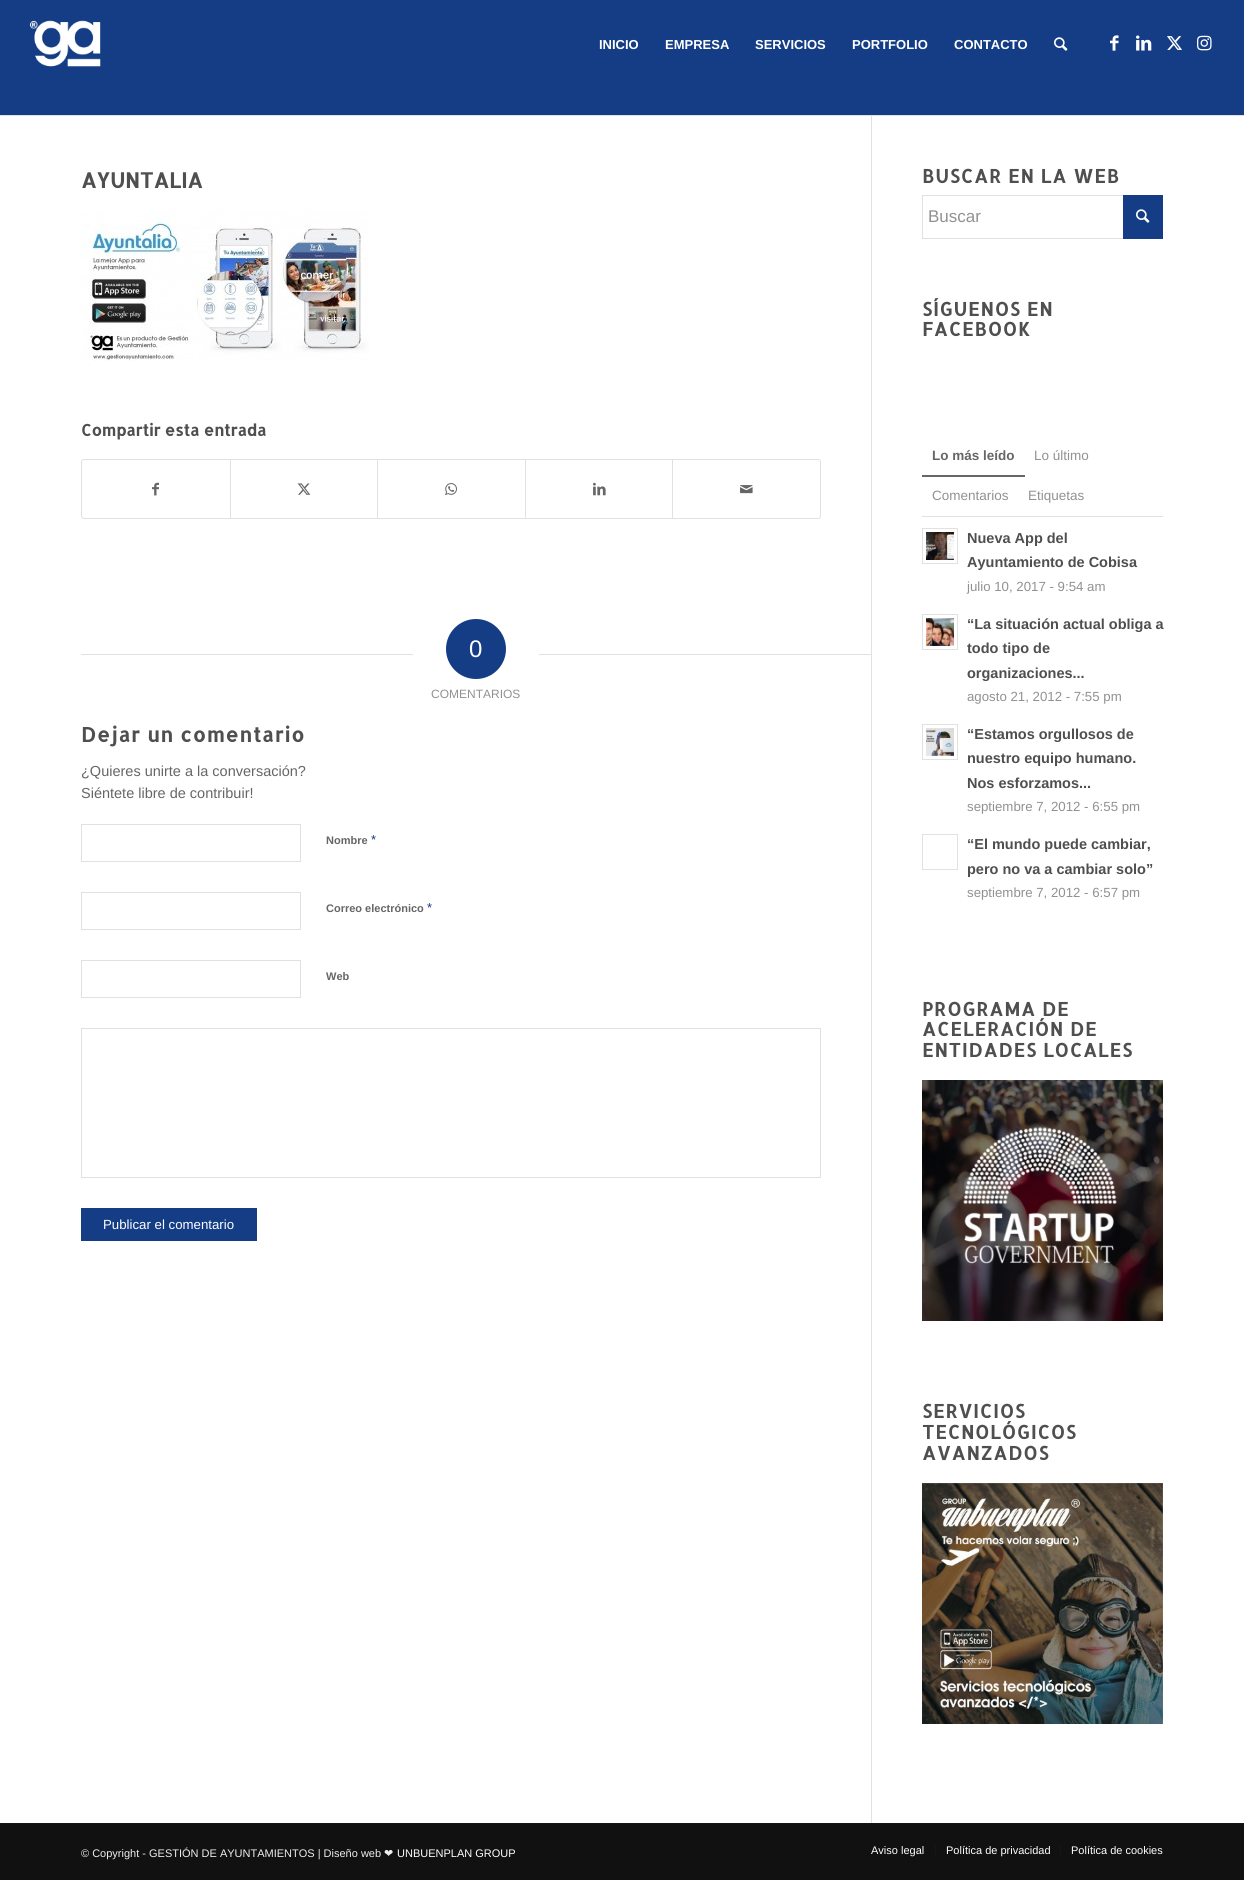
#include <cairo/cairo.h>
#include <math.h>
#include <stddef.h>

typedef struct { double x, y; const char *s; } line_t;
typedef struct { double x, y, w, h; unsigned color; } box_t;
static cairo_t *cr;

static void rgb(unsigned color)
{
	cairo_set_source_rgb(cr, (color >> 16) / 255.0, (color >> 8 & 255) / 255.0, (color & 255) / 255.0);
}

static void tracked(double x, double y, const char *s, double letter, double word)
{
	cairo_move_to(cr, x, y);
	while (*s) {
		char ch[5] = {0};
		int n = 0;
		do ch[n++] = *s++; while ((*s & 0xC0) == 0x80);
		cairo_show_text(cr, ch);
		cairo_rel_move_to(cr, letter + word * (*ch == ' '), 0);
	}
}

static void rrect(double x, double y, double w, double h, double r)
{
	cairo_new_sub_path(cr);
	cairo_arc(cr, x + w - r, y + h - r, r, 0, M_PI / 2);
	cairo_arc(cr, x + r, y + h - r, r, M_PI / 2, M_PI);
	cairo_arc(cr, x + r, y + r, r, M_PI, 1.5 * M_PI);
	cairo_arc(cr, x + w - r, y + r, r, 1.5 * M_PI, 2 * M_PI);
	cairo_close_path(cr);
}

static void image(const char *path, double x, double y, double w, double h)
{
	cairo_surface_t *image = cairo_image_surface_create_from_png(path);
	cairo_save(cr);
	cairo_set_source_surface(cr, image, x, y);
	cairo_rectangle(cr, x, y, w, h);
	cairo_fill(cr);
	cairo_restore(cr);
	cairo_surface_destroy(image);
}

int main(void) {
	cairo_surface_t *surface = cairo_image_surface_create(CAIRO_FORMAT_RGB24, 1244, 1880);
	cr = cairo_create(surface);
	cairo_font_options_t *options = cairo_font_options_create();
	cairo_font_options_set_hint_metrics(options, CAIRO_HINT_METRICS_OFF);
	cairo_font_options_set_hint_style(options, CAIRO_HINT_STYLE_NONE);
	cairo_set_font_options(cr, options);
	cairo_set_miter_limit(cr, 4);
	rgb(0x143d85);
	cairo_paint(cr);
	image("img/1.png", 29, 20, 72, 47);
	image("img/2.png", 1054, 37, 14, 14);
	image("img/3.png", 1110, 35, 9, 16);
	image("img/4.png", 1136, 35, 16, 16);
	image("img/5.png", 1167, 36, 15, 14);
	image("img/6.png", 1197, 35, 15, 16);
	rgb(0xffffff);
	cairo_rectangle(cr, 0, 116, 1244, 1707);
	cairo_fill(cr);
	rgb(0xe1e1e1);
	cairo_rectangle(cr, 0, 115, 1244, 1);
	cairo_fill(cr);
	image("img/7.png", 81, 209, 288, 152);
	rrect(81.5, 459.5, 739, 59, 2.5);
	cairo_set_line_width(cr, 1);
	cairo_stroke(cr);
	image("img/8.png", 152, 482, 7, 14);
	cairo_rectangle(cr, 230, 460, 1, 58);
	cairo_fill(cr);
	image("img/9.png", 297, 483, 14, 12);
	cairo_rectangle(cr, 377, 460, 1, 58);
	cairo_fill(cr);
	image("img/10.png", 445, 483, 12, 13);
	cairo_rectangle(cr, 525, 460, 1, 58);
	cairo_fill(cr);
	image("img/11.png", 593, 482, 13, 14);
	cairo_rectangle(cr, 672, 460, 1, 58);
	cairo_fill(cr);
	image("img/12.png", 740, 485, 13, 9);
	cairo_rectangle(cr, 81, 654, 332, 1);
	cairo_fill(cr);
	rgb(0x143d85);
	cairo_arc(cr, 476, 649, 30, 0, 2 * M_PI);
	cairo_fill(cr);
	rgb(0xe1e1e1);
	cairo_rectangle(cr, 539, 654, 332, 1);
	cairo_fill(cr);
	cairo_rectangle(cr, 81.5, 824.5, 219, 37);
	cairo_stroke(cr);
	cairo_rectangle(cr, 81.5, 892.5, 219, 37);
	cairo_stroke(cr);
	cairo_rectangle(cr, 81.5, 960.5, 219, 37);
	cairo_stroke(cr);
	cairo_rectangle(cr, 81.5, 1028.5, 739, 149);
	cairo_stroke(cr);
	rgb(0x143d85);
	cairo_rectangle(cr, 81, 1208, 176, 33);
	cairo_fill(cr);
	rgb(0xe1e1e1);
	cairo_rectangle(cr, 871, 116, 1, 1708);
	cairo_fill(cr);
	cairo_rectangle(cr, 922.5, 195.5, 240, 43);
	cairo_stroke(cr);
	rgb(0x143d85);
	cairo_rectangle(cr, 1123, 195, 40, 44);
	cairo_fill(cr);
	image("img/2.png", 1136, 209, 14, 14);
	rgb(0xe1e1e1);
	cairo_rectangle(cr, 922, 516, 241, 1);
	cairo_fill(cr);
	rgb(0x666666);
	cairo_rectangle(cr, 922, 475, 103, 2);
	cairo_fill(cr);
	cairo_rectangle(cr, 922.5, 528.5, 35, 35);
	rgb(0xe1e1e1);
	cairo_stroke(cr);
	image("img/13.png", 926, 532, 28, 28);
	cairo_rectangle(cr, 922.5, 614.5, 35, 35);
	cairo_stroke(cr);
	image("img/14.png", 926, 618, 28, 28);
	cairo_rectangle(cr, 922.5, 724.5, 35, 35);
	cairo_stroke(cr);
	image("img/15.png", 926, 728, 28, 28);
	cairo_rectangle(cr, 922.5, 834.5, 35, 35);
	cairo_stroke(cr);
	image("img/16.png", 922, 1080, 241, 241);
	image("img/17.png", 922, 1483, 241, 241);
	{
		static const box_t items[] = {
			{0, 1824, 1244, 56, 0x111111},
			{0, 1823, 1244, 1, 0x161616},
			{935, 1845, 1, 10, 0x161616},
			{1060, 1845, 1, 10, 0x161616},
		};
		for (size_t i = 0; i < sizeof items / sizeof *items; i++) {
			rgb(items[i].color);
			cairo_rectangle(cr, items[i].x, items[i].y, items[i].w, items[i].h);
			cairo_fill(cr);
		}
	}
	cairo_select_font_face(cr, "Liberation Sans", CAIRO_FONT_SLANT_NORMAL, CAIRO_FONT_WEIGHT_BOLD);
	cairo_set_font_size(cr, 13);
	rgb(0xffffff);
	{
		static const line_t items[] = {
			{599, 49, "INICIO"},
			{665, 49, "EMPRESA"},
			{755, 49, "SERVICIOS"},
			{852, 49, "PORTFOLIO"},
			{954, 49, "CONTACTO"},
		};
		for (size_t i = 0; i < sizeof items / sizeof *items; i++) {
			cairo_move_to(cr, items[i].x, items[i].y);
			cairo_show_text(cr, items[i].s);
		}
	}
	cairo_select_font_face(cr, "Allerta", CAIRO_FONT_SLANT_NORMAL, CAIRO_FONT_WEIGHT_BOLD);
	cairo_set_font_size(cr, 21);
	rgb(0x4f4f4f);
	cairo_move_to(cr, 81, 188);
	cairo_show_text(cr, "AYUNTALIA");
	cairo_set_font_size(cr, 16);
	cairo_move_to(cr, 81, 436);
	cairo_show_text(cr, "Compartir esta entrada");
	cairo_select_font_face(cr, "Liberation Sans", CAIRO_FONT_SLANT_NORMAL, CAIRO_FONT_WEIGHT_NORMAL);
	cairo_set_font_size(cr, 24);
	rgb(0xffffff);
	cairo_move_to(cr, 469, 657);
	cairo_show_text(cr, "0");
	cairo_set_font_size(cr, 12);
	rgb(0x919191);
	cairo_move_to(cr, 431, 698);
	cairo_show_text(cr, "COMENTARIOS");
	cairo_select_font_face(cr, "Allerta", CAIRO_FONT_SLANT_NORMAL, CAIRO_FONT_WEIGHT_BOLD);
	cairo_set_font_size(cr, 20);
	rgb(0x4f4f4f);
	tracked(81, 742, "Dejar un comentario", 1, 0);
	cairo_select_font_face(cr, "Liberation Sans", CAIRO_FONT_SLANT_NORMAL, CAIRO_FONT_WEIGHT_NORMAL);
	cairo_set_font_size(cr, 14.5);
	rgb(0x666666);
	cairo_move_to(cr, 81, 776);
	cairo_show_text(cr, "¿Quieres unirte a la conversación?");
	cairo_move_to(cr, 81, 798);
	cairo_show_text(cr, "Siéntete libre de contribuir!");
	cairo_select_font_face(cr, "Liberation Sans", CAIRO_FONT_SLANT_NORMAL, CAIRO_FONT_WEIGHT_BOLD);
	cairo_set_font_size(cr, 11);
	cairo_move_to(cr, 326, 844);
	cairo_show_text(cr, "Nombre");
	cairo_select_font_face(cr, "Liberation Sans", CAIRO_FONT_SLANT_NORMAL, CAIRO_FONT_WEIGHT_NORMAL);
	cairo_set_font_size(cr, 13);
	rgb(0x143d85);
	cairo_move_to(cr, 371, 844);
	cairo_show_text(cr, "*");
	cairo_select_font_face(cr, "Liberation Sans", CAIRO_FONT_SLANT_NORMAL, CAIRO_FONT_WEIGHT_BOLD);
	cairo_set_font_size(cr, 11);
	rgb(0x666666);
	cairo_move_to(cr, 326, 912);
	cairo_show_text(cr, "Correo electrónico");
	cairo_select_font_face(cr, "Liberation Sans", CAIRO_FONT_SLANT_NORMAL, CAIRO_FONT_WEIGHT_NORMAL);
	cairo_set_font_size(cr, 13);
	rgb(0x143d85);
	cairo_move_to(cr, 427, 912);
	cairo_show_text(cr, "*");
	cairo_select_font_face(cr, "Liberation Sans", CAIRO_FONT_SLANT_NORMAL, CAIRO_FONT_WEIGHT_BOLD);
	cairo_set_font_size(cr, 11);
	rgb(0x666666);
	cairo_move_to(cr, 326, 980);
	cairo_show_text(cr, "Web");
	cairo_select_font_face(cr, "Liberation Sans", CAIRO_FONT_SLANT_NORMAL, CAIRO_FONT_WEIGHT_NORMAL);
	cairo_set_font_size(cr, 13.25);
	rgb(0xffffff);
	cairo_move_to(cr, 103, 1229);
	cairo_show_text(cr, "Publicar el comentario");
	cairo_select_font_face(cr, "Allerta", CAIRO_FONT_SLANT_NORMAL, CAIRO_FONT_WEIGHT_BOLD);
	cairo_set_font_size(cr, 18.75);
	rgb(0x4f4f4f);
	tracked(922, 183, "BUSCAR EN LA WEB", 1, 0);
	cairo_select_font_face(cr, "Liberation Sans", CAIRO_FONT_SLANT_NORMAL, CAIRO_FONT_WEIGHT_NORMAL);
	cairo_set_font_size(cr, 17);
	rgb(0x919191);
	cairo_move_to(cr, 928, 222);
	cairo_show_text(cr, "Buscar");
	cairo_select_font_face(cr, "Allerta", CAIRO_FONT_SLANT_NORMAL, CAIRO_FONT_WEIGHT_BOLD);
	cairo_set_font_size(cr, 18.75);
	rgb(0x4f4f4f);
	tracked(922, 316, "SÍGUENOS EN", 1, 0);
	tracked(922, 336, "FACEBOOK", 1, 0);
	cairo_select_font_face(cr, "Liberation Sans", CAIRO_FONT_SLANT_NORMAL, CAIRO_FONT_WEIGHT_BOLD);
	cairo_set_font_size(cr, 13.5);
	rgb(0x666666);
	cairo_move_to(cr, 932, 460);
	cairo_show_text(cr, "Lo más leído");
	cairo_select_font_face(cr, "Liberation Sans", CAIRO_FONT_SLANT_NORMAL, CAIRO_FONT_WEIGHT_NORMAL);
	rgb(0x919191);
	{
		static const line_t items[] = {
			{1034, 460, "Lo último"},
			{932, 500, "Comentarios"},
			{1028, 500, "Etiquetas"},
		};
		for (size_t i = 0; i < sizeof items / sizeof *items; i++) {
			cairo_move_to(cr, items[i].x, items[i].y);
			cairo_show_text(cr, items[i].s);
		}
	}
	cairo_select_font_face(cr, "Liberation Sans", CAIRO_FONT_SLANT_NORMAL, CAIRO_FONT_WEIGHT_BOLD);
	cairo_set_font_size(cr, 14.5);
	rgb(0x4f4f4f);
	cairo_move_to(cr, 967, 543);
	cairo_show_text(cr, "Nueva App del");
	cairo_move_to(cr, 967, 567);
	cairo_show_text(cr, "Ayuntamiento de Cobisa");
	cairo_select_font_face(cr, "Liberation Sans", CAIRO_FONT_SLANT_NORMAL, CAIRO_FONT_WEIGHT_NORMAL);
	cairo_set_font_size(cr, 13.25);
	rgb(0x919191);
	cairo_move_to(cr, 967, 591);
	cairo_show_text(cr, "julio 10, 2017 - 9:54 am");
	cairo_select_font_face(cr, "Liberation Sans", CAIRO_FONT_SLANT_NORMAL, CAIRO_FONT_WEIGHT_BOLD);
	cairo_set_font_size(cr, 14.5);
	rgb(0x4f4f4f);
	{
		static const line_t items[] = {
			{967, 629, "“La situación actual obliga a"},
			{967, 653, "todo tipo de"},
			{967, 678, "organizaciones..."},
		};
		for (size_t i = 0; i < sizeof items / sizeof *items; i++) {
			cairo_move_to(cr, items[i].x, items[i].y);
			cairo_show_text(cr, items[i].s);
		}
	}
	cairo_select_font_face(cr, "Liberation Sans", CAIRO_FONT_SLANT_NORMAL, CAIRO_FONT_WEIGHT_NORMAL);
	cairo_set_font_size(cr, 13.25);
	rgb(0x919191);
	cairo_move_to(cr, 967, 701);
	cairo_show_text(cr, "agosto 21, 2012 - 7:55 pm");
	cairo_select_font_face(cr, "Liberation Sans", CAIRO_FONT_SLANT_NORMAL, CAIRO_FONT_WEIGHT_BOLD);
	cairo_set_font_size(cr, 14.5);
	rgb(0x4f4f4f);
	{
		static const line_t items[] = {
			{967, 739, "“Estamos orgullosos de"},
			{967, 763, "nuestro equipo humano."},
			{967, 788, "Nos esforzamos..."},
		};
		for (size_t i = 0; i < sizeof items / sizeof *items; i++) {
			cairo_move_to(cr, items[i].x, items[i].y);
			cairo_show_text(cr, items[i].s);
		}
	}
	cairo_select_font_face(cr, "Liberation Sans", CAIRO_FONT_SLANT_NORMAL, CAIRO_FONT_WEIGHT_NORMAL);
	cairo_set_font_size(cr, 13.25);
	rgb(0x919191);
	cairo_move_to(cr, 967, 811);
	cairo_show_text(cr, "septiembre 7, 2012 - 6:55 pm");
	cairo_select_font_face(cr, "Liberation Sans", CAIRO_FONT_SLANT_NORMAL, CAIRO_FONT_WEIGHT_BOLD);
	cairo_set_font_size(cr, 14.5);
	rgb(0x4f4f4f);
	cairo_move_to(cr, 967, 849);
	cairo_show_text(cr, "“El mundo puede cambiar,");
	cairo_move_to(cr, 967, 874);
	cairo_show_text(cr, "pero no va a cambiar solo”");
	cairo_select_font_face(cr, "Liberation Sans", CAIRO_FONT_SLANT_NORMAL, CAIRO_FONT_WEIGHT_NORMAL);
	cairo_set_font_size(cr, 13.25);
	rgb(0x919191);
	cairo_move_to(cr, 967, 897);
	cairo_show_text(cr, "septiembre 7, 2012 - 6:57 pm");
	cairo_select_font_face(cr, "Allerta", CAIRO_FONT_SLANT_NORMAL, CAIRO_FONT_WEIGHT_BOLD);
	cairo_set_font_size(cr, 18.75);
	rgb(0x4f4f4f);
	{
		static const line_t items[] = {
			{922, 1016, "PROGRAMA DE"},
			{922, 1036, "ACELERACIÓN DE"},
			{922, 1057, "ENTIDADES LOCALES"},
			{922, 1418, "SERVICIOS"},
			{922, 1439, "TECNOLÓGICOS"},
			{922, 1460, "AVANZADOS"},
		};
		for (size_t i = 0; i < sizeof items / sizeof *items; i++) {
			tracked(items[i].x, items[i].y, items[i].s, 1, 0);
		}
	}
	cairo_select_font_face(cr, "Liberation Sans", CAIRO_FONT_SLANT_NORMAL, CAIRO_FONT_WEIGHT_NORMAL);
	cairo_set_font_size(cr, 11);
	rgb(0xeeeeee);
	cairo_move_to(cr, 81, 1857);
	cairo_show_text(cr, "© Copyright - GESTIÓN DE AYUNTAMIENTOS | Diseño web");
	cairo_select_font_face(cr, "DejaVu Sans", CAIRO_FONT_SLANT_NORMAL, CAIRO_FONT_WEIGHT_NORMAL);
	cairo_move_to(cr, 384, 1857);
	cairo_show_text(cr, "❤");
	cairo_select_font_face(cr, "Liberation Sans", CAIRO_FONT_SLANT_NORMAL, CAIRO_FONT_WEIGHT_NORMAL);
	rgb(0xffffff);
	{
		static const line_t items[] = {
			{397, 1857, "UNBUENPLAN GROUP"},
			{871, 1854, "Aviso legal"},
			{946, 1854, "Política de privacidad"},
			{1071, 1854, "Política de cookies"},
		};
		for (size_t i = 0; i < sizeof items / sizeof *items; i++) {
			cairo_move_to(cr, items[i].x, items[i].y);
			cairo_show_text(cr, items[i].s);
		}
	}
	cairo_surface_write_to_png(surface, "page.png");
	cairo_font_options_destroy(options);
	cairo_destroy(cr);
	cairo_surface_destroy(surface);
	return 0;
}
